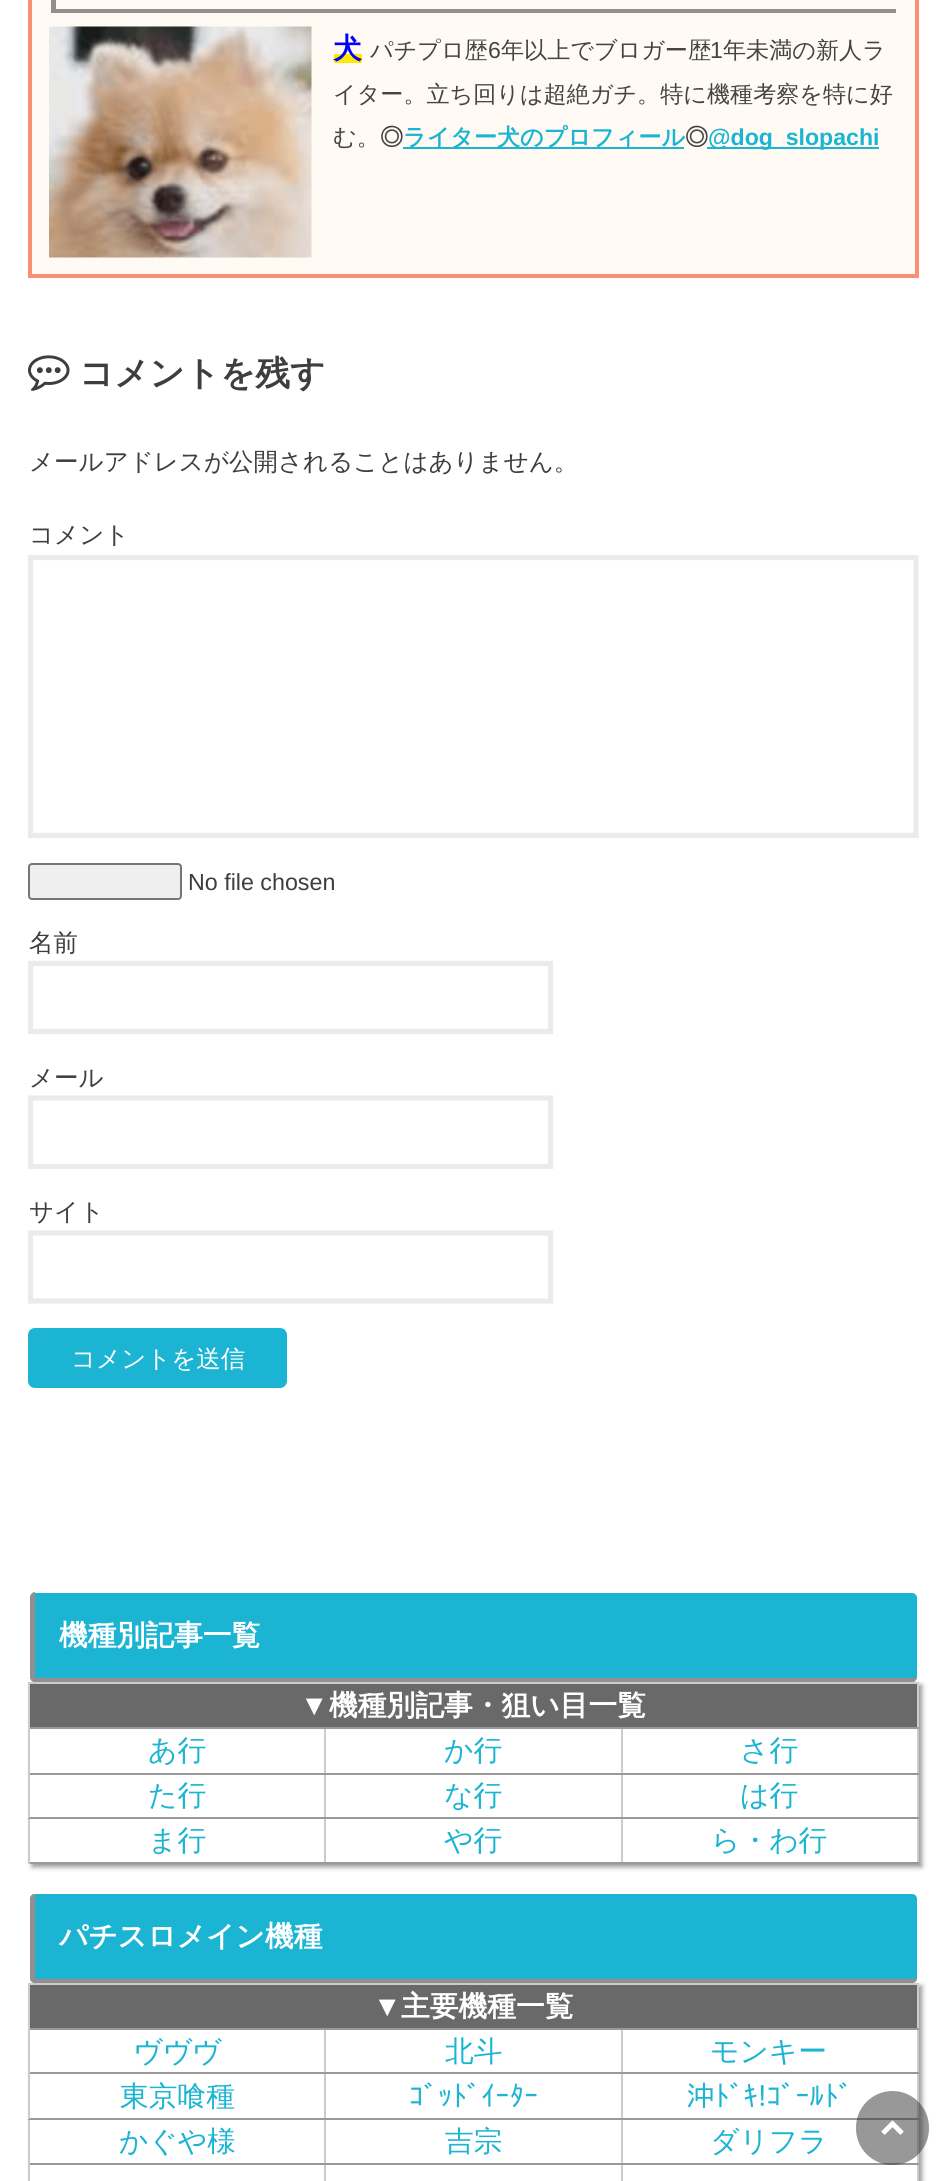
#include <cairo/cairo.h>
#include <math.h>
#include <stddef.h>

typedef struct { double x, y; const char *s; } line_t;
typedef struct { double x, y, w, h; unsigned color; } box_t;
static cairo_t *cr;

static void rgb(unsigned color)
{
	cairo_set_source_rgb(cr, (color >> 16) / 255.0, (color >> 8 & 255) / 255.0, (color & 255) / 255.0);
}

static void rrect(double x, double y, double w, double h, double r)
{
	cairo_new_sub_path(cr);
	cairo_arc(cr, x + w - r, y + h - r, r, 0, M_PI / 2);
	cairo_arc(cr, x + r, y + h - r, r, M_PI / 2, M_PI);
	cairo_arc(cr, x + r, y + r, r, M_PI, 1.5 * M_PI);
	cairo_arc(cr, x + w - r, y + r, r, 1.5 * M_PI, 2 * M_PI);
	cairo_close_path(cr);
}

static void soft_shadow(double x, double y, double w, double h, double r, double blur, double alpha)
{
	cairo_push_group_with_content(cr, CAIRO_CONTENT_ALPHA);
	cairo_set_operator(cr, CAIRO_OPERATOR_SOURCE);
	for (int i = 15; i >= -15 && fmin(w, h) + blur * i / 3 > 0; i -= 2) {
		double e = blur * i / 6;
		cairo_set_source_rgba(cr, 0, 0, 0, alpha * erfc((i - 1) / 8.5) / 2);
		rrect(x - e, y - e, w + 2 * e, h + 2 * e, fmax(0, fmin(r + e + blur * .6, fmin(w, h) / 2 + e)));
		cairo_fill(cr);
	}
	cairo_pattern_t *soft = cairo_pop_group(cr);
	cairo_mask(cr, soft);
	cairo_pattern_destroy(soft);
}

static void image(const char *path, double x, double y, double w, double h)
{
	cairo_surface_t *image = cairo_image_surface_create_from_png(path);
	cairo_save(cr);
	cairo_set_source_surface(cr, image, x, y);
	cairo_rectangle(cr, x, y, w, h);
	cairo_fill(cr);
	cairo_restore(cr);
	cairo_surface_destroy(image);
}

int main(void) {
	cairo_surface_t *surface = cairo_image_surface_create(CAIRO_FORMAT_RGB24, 946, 2181);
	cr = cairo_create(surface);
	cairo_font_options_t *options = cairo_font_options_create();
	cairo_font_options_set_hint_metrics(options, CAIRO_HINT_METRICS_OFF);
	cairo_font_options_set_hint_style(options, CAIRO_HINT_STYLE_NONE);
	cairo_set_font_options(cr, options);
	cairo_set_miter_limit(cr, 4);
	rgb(0xffffff);
	cairo_paint(cr);
	rgb(0xfffbf4);
	cairo_rectangle(cr, 30, -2, 887, 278);
	cairo_fill_preserve(cr);
	rgb(0xf89174);
	cairo_set_line_width(cr, 4);
	cairo_stroke(cr);
	rgb(0x988d8d);
	cairo_rectangle(cr, 51, 9, 845, 4);
	cairo_fill(cr);
	cairo_rectangle(cr, 51, 0, 5, 12);
	cairo_fill(cr);
	image("img/1.png", 49, 26, 263, 232);
	{
		static const box_t items[] = {
			{334, 54, 28, 9, 0xffe900},
			{403, 147, 281, 2, 0x1bb4d3},
			{707, 147, 172, 2, 0x1bb4d3},
		};
		for (size_t i = 0; i < sizeof items / sizeof *items; i++) {
			rgb(items[i].color);
			cairo_rectangle(cr, items[i].x, items[i].y, items[i].w, items[i].h);
			cairo_fill(cr);
		}
	}
	image("img/2.png", 28, 355, 42, 36);
	cairo_new_path(cr);
	cairo_move_to(cr, 30.5, 557.5);
	cairo_line_to(cr, 916, 557.5);
	cairo_line_to(cr, 916, 835.5);
	cairo_line_to(cr, 30.5, 835.5);
	cairo_close_path(cr);
	rgb(0xebebeb);
	cairo_set_line_width(cr, 5.2);
	cairo_stroke(cr);
	rgb(0xefefef);
	rrect(29, 864, 152, 35, 3);
	cairo_fill_preserve(cr);
	rgb(0x767676);
	cairo_set_line_width(cr, 2);
	cairo_stroke(cr);
	cairo_new_path(cr);
	cairo_move_to(cr, 30.5, 963.5);
	cairo_line_to(cr, 550.5, 963.5);
	cairo_line_to(cr, 550.5, 1031.5);
	cairo_line_to(cr, 30.5, 1031.5);
	cairo_close_path(cr);
	rgb(0xebebeb);
	cairo_set_line_width(cr, 5.2);
	cairo_stroke(cr);
	cairo_new_path(cr);
	cairo_move_to(cr, 30.5, 1098);
	cairo_line_to(cr, 550.5, 1098);
	cairo_line_to(cr, 550.5, 1166.5);
	cairo_line_to(cr, 30.5, 1166.5);
	cairo_close_path(cr);
	cairo_stroke(cr);
	cairo_new_path(cr);
	cairo_move_to(cr, 30.5, 1233);
	cairo_line_to(cr, 550.5, 1233);
	cairo_line_to(cr, 550.5, 1301);
	cairo_line_to(cr, 30.5, 1301);
	cairo_close_path(cr);
	cairo_stroke(cr);
	rgb(0x1bb4d3);
	rrect(28, 1328, 259, 60, 7);
	cairo_fill(cr);
	cairo_save(cr);
	cairo_set_fill_rule(cr, CAIRO_FILL_RULE_EVEN_ODD);
	cairo_new_path(cr);
	cairo_move_to(cr, 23, 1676);
	cairo_line_to(cr, 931, 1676);
	cairo_line_to(cr, 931, 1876);
	cairo_line_to(cr, 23, 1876);
	cairo_close_path(cr);
	cairo_move_to(cr, 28, 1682);
	cairo_line_to(cr, 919, 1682);
	cairo_line_to(cr, 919, 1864);
	cairo_line_to(cr, 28, 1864);
	cairo_close_path(cr);
	cairo_clip(cr);
	rgb(0x969696);
	soft_shadow(32, 1685, 890, 182, 0, 2.5, 1);
	cairo_restore(cr);
	rrect(30, 1593, 887, 89, 5);
	cairo_fill(cr);
	rgb(0x988d8d);
	cairo_set_fill_rule(cr, CAIRO_FILL_RULE_EVEN_ODD);
	cairo_new_path(cr);
	cairo_move_to(cr, 35, 1592);
	cairo_line_to(cr, 912, 1592);
	cairo_curve_to(cr, 915, 1592, 917, 1595, 917, 1598);
	cairo_line_to(cr, 917, 1676);
	cairo_curve_to(cr, 917, 1679, 915, 1682, 912, 1682);
	cairo_line_to(cr, 35, 1682);
	cairo_curve_to(cr, 32, 1682, 30, 1679, 30, 1676);
	cairo_line_to(cr, 30, 1598);
	cairo_curve_to(cr, 30, 1595, 32, 1592, 35, 1592);
	cairo_close_path(cr);
	cairo_move_to(cr, 35, 1592);
	cairo_line_to(cr, 912, 1592);
	cairo_curve_to(cr, 915, 1592, 917, 1595, 917, 1598);
	cairo_line_to(cr, 917, 1676);
	cairo_curve_to(cr, 917, 1677, 915, 1678, 912, 1678);
	cairo_line_to(cr, 35, 1678);
	cairo_close_path(cr);
	cairo_fill(cr);
	{
		static const box_t items[] = {
			{28, 1682, 891, 2, 0xcccccc},
			{917, 1682, 2, 182, 0xcccccc},
			{30, 1684, 887, 43, 0x696969},
			{621, 1862, 298, 2, 0x999999},
			{621, 1817, 2, 47, 0xcccccc},
			{621, 1817, 298, 2, 0x999999},
			{621, 1773, 2, 45, 0xcccccc},
			{621, 1773, 298, 2, 0x999999},
			{621, 1727, 2, 48, 0xcccccc},
			{324, 1862, 299, 2, 0x999999},
			{324, 1817, 2, 47, 0xcccccc},
			{324, 1817, 299, 2, 0x999999},
			{324, 1773, 2, 45, 0xcccccc},
			{324, 1773, 299, 2, 0x999999},
			{324, 1727, 2, 48, 0xcccccc},
			{28, 1862, 298, 2, 0x999999},
			{28, 1817, 2, 47, 0xcccccc},
			{28, 1817, 298, 2, 0x999999},
			{28, 1773, 2, 45, 0xcccccc},
			{28, 1773, 298, 2, 0x999999},
			{28, 1727, 2, 48, 0xcccccc},
			{28, 1727, 891, 2, 0x999999},
			{28, 1682, 2, 47, 0xcccccc},
		};
		for (size_t i = 0; i < sizeof items / sizeof *items; i++) {
			rgb(items[i].color);
			cairo_rectangle(cr, items[i].x, items[i].y, items[i].w, items[i].h);
			cairo_fill(cr);
		}
	}
	cairo_save(cr);
	cairo_new_path(cr);
	cairo_move_to(cr, 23, 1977);
	cairo_line_to(cr, 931, 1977);
	cairo_line_to(cr, 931, 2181);
	cairo_line_to(cr, 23, 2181);
	cairo_close_path(cr);
	cairo_move_to(cr, 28, 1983);
	cairo_line_to(cr, 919, 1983);
	cairo_line_to(cr, 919, 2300);
	cairo_line_to(cr, 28, 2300);
	cairo_close_path(cr);
	cairo_clip(cr);
	rgb(0x969696);
	soft_shadow(32, 1986, 890, 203, 0, 2.5, 1);
	cairo_restore(cr);
	rgb(0x1bb4d3);
	rrect(30, 1894, 887, 89, 5);
	cairo_fill(cr);
	rgb(0x988d8d);
	cairo_new_path(cr);
	cairo_move_to(cr, 35, 1894);
	cairo_line_to(cr, 912, 1894);
	cairo_curve_to(cr, 915, 1894, 917, 1896, 917, 1899);
	cairo_line_to(cr, 917, 1978);
	cairo_curve_to(cr, 917, 1980, 915, 1983, 912, 1983);
	cairo_line_to(cr, 35, 1983);
	cairo_curve_to(cr, 32, 1983, 30, 1980, 30, 1978);
	cairo_line_to(cr, 30, 1899);
	cairo_curve_to(cr, 30, 1896, 32, 1894, 35, 1894);
	cairo_close_path(cr);
	cairo_move_to(cr, 35, 1894);
	cairo_line_to(cr, 912, 1894);
	cairo_curve_to(cr, 915, 1894, 917, 1896, 917, 1899);
	cairo_line_to(cr, 917, 1978);
	cairo_curve_to(cr, 917, 1978, 915, 1979, 912, 1979);
	cairo_line_to(cr, 35, 1979);
	cairo_close_path(cr);
	cairo_fill(cr);
	{
		static const box_t items[] = {
			{28, 1983, 891, 2, 0xcccccc},
			{917, 1983, 2, 198, 0xcccccc},
			{30, 1985, 887, 43, 0x696969},
			{621, 2163, 2, 18, 0xcccccc},
			{621, 2163, 298, 2, 0x999999},
			{621, 2118, 2, 47, 0xcccccc},
			{621, 2118, 298, 2, 0x999999},
			{621, 2072, 2, 47, 0xcccccc},
			{621, 2072, 298, 2, 0x999999},
			{621, 2028, 2, 46, 0xcccccc},
			{324, 2163, 2, 18, 0xcccccc},
			{324, 2163, 299, 2, 0x999999},
			{324, 2118, 2, 47, 0xcccccc},
			{324, 2118, 299, 2, 0x999999},
			{324, 2072, 2, 47, 0xcccccc},
			{324, 2072, 299, 2, 0x999999},
			{324, 2028, 2, 46, 0xcccccc},
			{28, 2163, 2, 18, 0xcccccc},
			{28, 2163, 298, 2, 0x999999},
			{28, 2118, 2, 47, 0xcccccc},
			{28, 2118, 298, 2, 0x999999},
			{28, 2072, 2, 47, 0xcccccc},
			{28, 2072, 298, 2, 0x999999},
			{28, 2028, 2, 46, 0xcccccc},
			{28, 2028, 891, 2, 0x999999},
			{28, 1983, 2, 47, 0xcccccc},
		};
		for (size_t i = 0; i < sizeof items / sizeof *items; i++) {
			rgb(items[i].color);
			cairo_rectangle(cr, items[i].x, items[i].y, items[i].w, items[i].h);
			cairo_fill(cr);
		}
	}
	cairo_set_source_rgba(cr, 0.2, 0.2, 0.2, 0.5);
	rrect(856, 2091, 73, 74, 36.5);
	cairo_fill(cr);
	image("img/3.png", 881, 2120, 23, 15);
	cairo_select_font_face(cr, "WenQuanYi Zen Hei", CAIRO_FONT_SLANT_NORMAL, CAIRO_FONT_WEIGHT_BOLD);
	cairo_set_font_size(cr, 28.75);
	rgb(0x0000ff);
	cairo_move_to(cr, 333, 58);
	cairo_show_text(cr, "犬");
	cairo_select_font_face(cr, "WenQuanYi Zen Hei Medium", CAIRO_FONT_SLANT_NORMAL, CAIRO_FONT_WEIGHT_NORMAL);
	cairo_set_font_size(cr, 23.1);
	rgb(0x444444);
	cairo_move_to(cr, 370, 58);
	cairo_show_text(cr, "パチプロ歴");
	cairo_select_font_face(cr, "Liberation Sans", CAIRO_FONT_SLANT_NORMAL, CAIRO_FONT_WEIGHT_NORMAL);
	cairo_move_to(cr, 488, 58);
	cairo_show_text(cr, "6");
	cairo_select_font_face(cr, "WenQuanYi Zen Hei Medium", CAIRO_FONT_SLANT_NORMAL, CAIRO_FONT_WEIGHT_NORMAL);
	cairo_move_to(cr, 501, 58);
	cairo_show_text(cr, "年以上でブロガー歴");
	cairo_select_font_face(cr, "Liberation Sans", CAIRO_FONT_SLANT_NORMAL, CAIRO_FONT_WEIGHT_NORMAL);
	cairo_move_to(cr, 710, 58);
	cairo_show_text(cr, "1");
	cairo_select_font_face(cr, "WenQuanYi Zen Hei Medium", CAIRO_FONT_SLANT_NORMAL, CAIRO_FONT_WEIGHT_NORMAL);
	{
		static const line_t items[] = {
			{723, 58, "年未満の新人ラ"},
			{333, 102, "イター。立ち回りは超絶ガチ。特に機種考察を特に好"},
			{333, 145, "む。"},
		};
		for (size_t i = 0; i < sizeof items / sizeof *items; i++) {
			cairo_move_to(cr, items[i].x, items[i].y);
			cairo_show_text(cr, items[i].s);
		}
	}
	cairo_select_font_face(cr, "WenQuanYi Zen Hei", CAIRO_FONT_SLANT_NORMAL, CAIRO_FONT_WEIGHT_BOLD);
	cairo_move_to(cr, 380, 145);
	cairo_show_text(cr, "◎");
	rgb(0x1bb4d3);
	cairo_move_to(cr, 403, 145);
	cairo_show_text(cr, "ライター犬のプロフィール");
	rgb(0x444444);
	cairo_move_to(cr, 685, 145);
	cairo_show_text(cr, "◎");
	cairo_select_font_face(cr, "Liberation Sans", CAIRO_FONT_SLANT_NORMAL, CAIRO_FONT_WEIGHT_BOLD);
	rgb(0x1bb4d3);
	cairo_move_to(cr, 708, 145);
	cairo_show_text(cr, "@dog_slopachi");
	cairo_select_font_face(cr, "WenQuanYi Zen Hei", CAIRO_FONT_SLANT_NORMAL, CAIRO_FONT_WEIGHT_BOLD);
	cairo_set_font_size(cr, 34.5);
	rgb(0x3e3e3e);
	cairo_move_to(cr, 79, 385);
	cairo_show_text(cr, "コメントを残す");
	cairo_select_font_face(cr, "WenQuanYi Zen Hei Medium", CAIRO_FONT_SLANT_NORMAL, CAIRO_FONT_WEIGHT_NORMAL);
	cairo_set_font_size(cr, 24.5);
	cairo_move_to(cr, 29, 470);
	cairo_show_text(cr, "メールアドレスが公開されることはありません。");
	cairo_move_to(cr, 29, 543);
	cairo_show_text(cr, "コメント");
	cairo_select_font_face(cr, "Liberation Sans", CAIRO_FONT_SLANT_NORMAL, CAIRO_FONT_WEIGHT_NORMAL);
	cairo_set_font_size(cr, 23.25);
	cairo_move_to(cr, 188, 890);
	cairo_show_text(cr, "No file chosen");
	cairo_select_font_face(cr, "WenQuanYi Zen Hei Medium", CAIRO_FONT_SLANT_NORMAL, CAIRO_FONT_WEIGHT_NORMAL);
	cairo_set_font_size(cr, 24.5);
	{
		static const line_t items[] = {
			{29, 951, "名前"},
			{29, 1086, "メール"},
			{29, 1220, "サイト"},
		};
		for (size_t i = 0; i < sizeof items / sizeof *items; i++) {
			cairo_move_to(cr, items[i].x, items[i].y);
			cairo_show_text(cr, items[i].s);
		}
	}
	rgb(0xffffff);
	cairo_move_to(cr, 71, 1367);
	cairo_show_text(cr, "コメントを送信");
	cairo_select_font_face(cr, "WenQuanYi Zen Hei", CAIRO_FONT_SLANT_NORMAL, CAIRO_FONT_WEIGHT_BOLD);
	cairo_set_font_size(cr, 28.75);
	cairo_move_to(cr, 59, 1645);
	cairo_show_text(cr, "機種別記事一覧");
	cairo_select_font_face(cr, "Liberation Sans", CAIRO_FONT_SLANT_NORMAL, CAIRO_FONT_WEIGHT_BOLD);
	cairo_move_to(cr, 300, 1715);
	cairo_show_text(cr, "▼");
	cairo_select_font_face(cr, "WenQuanYi Zen Hei", CAIRO_FONT_SLANT_NORMAL, CAIRO_FONT_WEIGHT_BOLD);
	cairo_move_to(cr, 329, 1715);
	cairo_show_text(cr, "機種別記事・狙い目一覧");
	cairo_select_font_face(cr, "WenQuanYi Zen Hei Medium", CAIRO_FONT_SLANT_NORMAL, CAIRO_FONT_WEIGHT_NORMAL);
	rgb(0x1bb4d3);
	{
		static const line_t items[] = {
			{148, 1760, "あ行"},
			{444, 1760, "か行"},
			{740, 1760, "さ行"},
			{148, 1805, "た行"},
			{444, 1805, "な行"},
			{740, 1805, "は行"},
			{148, 1850, "ま行"},
			{444, 1850, "や行"},
			{711, 1850, "ら・わ行"},
		};
		for (size_t i = 0; i < sizeof items / sizeof *items; i++) {
			cairo_move_to(cr, items[i].x, items[i].y);
			cairo_show_text(cr, items[i].s);
		}
	}
	cairo_select_font_face(cr, "WenQuanYi Zen Hei", CAIRO_FONT_SLANT_NORMAL, CAIRO_FONT_WEIGHT_BOLD);
	rgb(0xffffff);
	cairo_move_to(cr, 59, 1946);
	cairo_show_text(cr, "パチスロメイン機種");
	cairo_select_font_face(cr, "Liberation Sans", CAIRO_FONT_SLANT_NORMAL, CAIRO_FONT_WEIGHT_BOLD);
	cairo_move_to(cr, 373, 2016);
	cairo_show_text(cr, "▼");
	cairo_select_font_face(cr, "WenQuanYi Zen Hei", CAIRO_FONT_SLANT_NORMAL, CAIRO_FONT_WEIGHT_BOLD);
	cairo_move_to(cr, 401, 2016);
	cairo_show_text(cr, "主要機種一覧");
	cairo_select_font_face(cr, "WenQuanYi Zen Hei Medium", CAIRO_FONT_SLANT_NORMAL, CAIRO_FONT_WEIGHT_NORMAL);
	rgb(0x1bb4d3);
	{
		static const line_t items[] = {
			{133, 2061, "ヴヴヴ"},
			{445, 2061, "北斗"},
			{710, 2061, "モンキー"},
			{120, 2106, "東京喰種"},
		};
		for (size_t i = 0; i < sizeof items / sizeof *items; i++) {
			cairo_move_to(cr, items[i].x, items[i].y);
			cairo_show_text(cr, items[i].s);
		}
	}
	cairo_select_font_face(cr, "IPAPGothic", CAIRO_FONT_SLANT_NORMAL, CAIRO_FONT_WEIGHT_NORMAL);
	cairo_move_to(cr, 409, 2106);
	cairo_show_text(cr, "ｺﾞｯﾄﾞｲｰﾀｰ");
	cairo_move_to(cr, 686, 2106);
	cairo_show_text(cr, "沖ﾄﾞｷ!ｺﾞｰﾙﾄﾞ");
	cairo_select_font_face(cr, "WenQuanYi Zen Hei Medium", CAIRO_FONT_SLANT_NORMAL, CAIRO_FONT_WEIGHT_NORMAL);
	{
		static const line_t items[] = {
			{119, 2151, "かぐや様"},
			{445, 2151, "吉宗"},
			{710, 2151, "ダリフラ"},
		};
		for (size_t i = 0; i < sizeof items / sizeof *items; i++) {
			cairo_move_to(cr, items[i].x, items[i].y);
			cairo_show_text(cr, items[i].s);
		}
	}
	cairo_surface_write_to_png(surface, "page.png");
	cairo_font_options_destroy(options);
	cairo_destroy(cr);
	cairo_surface_destroy(surface);
	return 0;
}
